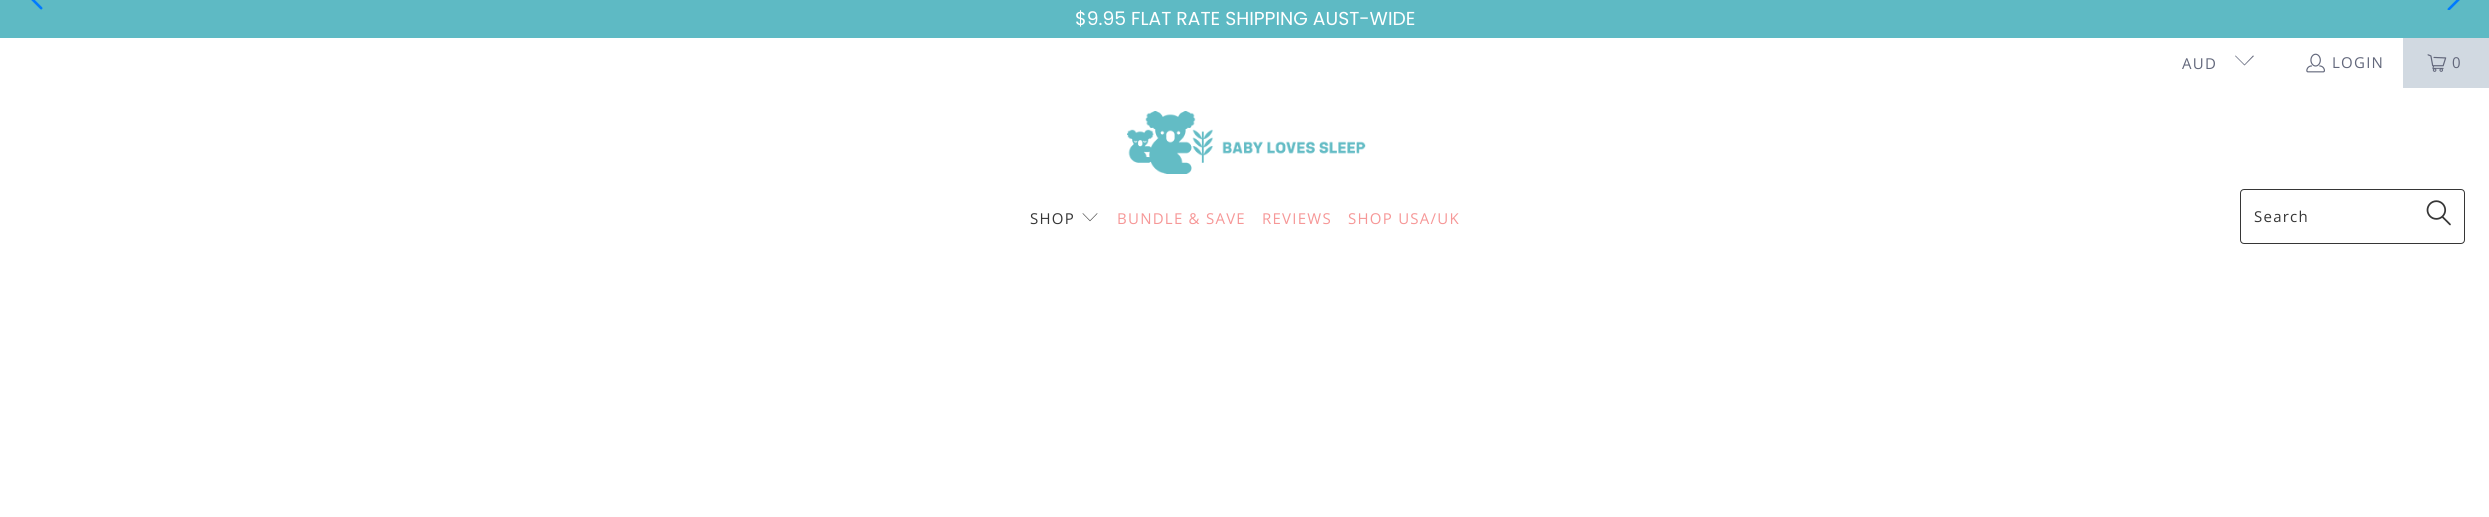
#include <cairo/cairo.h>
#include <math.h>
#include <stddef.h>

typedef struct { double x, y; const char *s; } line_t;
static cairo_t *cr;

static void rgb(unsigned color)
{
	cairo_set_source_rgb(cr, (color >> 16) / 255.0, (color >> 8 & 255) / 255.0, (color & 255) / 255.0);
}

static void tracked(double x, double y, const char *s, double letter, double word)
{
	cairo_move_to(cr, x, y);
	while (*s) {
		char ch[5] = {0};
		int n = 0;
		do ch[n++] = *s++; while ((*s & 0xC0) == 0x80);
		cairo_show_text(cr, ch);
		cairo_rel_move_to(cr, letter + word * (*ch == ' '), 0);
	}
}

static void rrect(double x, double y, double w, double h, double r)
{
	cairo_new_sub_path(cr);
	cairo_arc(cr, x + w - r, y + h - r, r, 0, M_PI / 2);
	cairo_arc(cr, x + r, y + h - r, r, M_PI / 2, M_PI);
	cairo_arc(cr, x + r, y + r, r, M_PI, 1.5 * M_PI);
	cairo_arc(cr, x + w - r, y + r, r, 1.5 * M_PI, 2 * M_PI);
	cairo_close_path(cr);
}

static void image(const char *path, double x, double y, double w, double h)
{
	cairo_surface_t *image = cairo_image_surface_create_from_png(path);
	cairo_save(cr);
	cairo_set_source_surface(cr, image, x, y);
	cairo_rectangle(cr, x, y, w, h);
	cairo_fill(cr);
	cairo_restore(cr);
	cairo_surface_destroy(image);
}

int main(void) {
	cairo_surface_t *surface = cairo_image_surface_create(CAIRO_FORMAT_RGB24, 2489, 517);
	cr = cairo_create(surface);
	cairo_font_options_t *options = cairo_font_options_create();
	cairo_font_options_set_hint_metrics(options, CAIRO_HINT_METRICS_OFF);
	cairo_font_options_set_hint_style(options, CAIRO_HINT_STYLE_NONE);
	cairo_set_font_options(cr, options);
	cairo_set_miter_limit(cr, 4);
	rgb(0xffffff);
	cairo_paint(cr);
	rgb(0x5ebac4);
	cairo_rectangle(cr, 0, 0, 2489, 38);
	cairo_fill(cr);
	image("img/1.png", 31, 0, 12, 10);
	image("img/2.png", 2447, 0, 13, 10);
	rgb(0x62677b);
	cairo_new_path(cr);
	cairo_move_to(cr, 2244.5, 65.5);
	cairo_line_to(cr, 2235, 56);
	cairo_line_to(cr, 2235.5, 55.5);
	cairo_line_to(cr, 2244.5, 64.5);
	cairo_line_to(cr, 2253, 55.5);
	cairo_line_to(cr, 2254, 56);
	cairo_close_path(cr);
	cairo_fill(cr);
	image("img/3.png", 2306, 53, 19, 20);
	rgb(0xd1d9e1);
	cairo_rectangle(cr, 2403, 38, 86, 50);
	cairo_fill(cr);
	image("img/4.png", 2427, 54, 20, 18);
	image("img/5.png", 1127, 111, 239, 63);
	image("img/6.png", 1082, 213, 16, 9);
	rrect(2240.5, 189.5, 224, 54, 3.5);
	rgb(0x363636);
	cairo_set_line_width(cr, 1);
	cairo_stroke(cr);
	image("img/7.png", 2426, 200, 25, 26);
	cairo_select_font_face(cr, "Poppins", CAIRO_FONT_SLANT_NORMAL, CAIRO_FONT_WEIGHT_NORMAL);
	cairo_set_font_size(cr, 18.75);
	rgb(0xffffff);
	cairo_move_to(cr, 1075, 25);
	cairo_show_text(cr, "$9.95 FLAT RATE SHIPPING AUST-WIDE");
	cairo_select_font_face(cr, "Open Sans", CAIRO_FONT_SLANT_NORMAL, CAIRO_FONT_WEIGHT_NORMAL);
	cairo_set_font_size(cr, 15);
	rgb(0x62677b);
	{
		static const line_t items[] = {
			{2182, 69, "AUD"},
			{2332, 68, "LOGIN"},
			{2452, 68, "0"},
		};
		for (size_t i = 0; i < sizeof items / sizeof *items; i++) {
			tracked(items[i].x, items[i].y, items[i].s, 1.25, 0);
		}
	}
	rgb(0x363636);
	tracked(1030, 224, "SHOP", 1.25, 0);
	rgb(0xf69797);
	{
		static const line_t items[] = {
			{1117, 224, "BUNDLE & SAVE"},
			{1262, 224, "REVIEWS"},
			{1348, 224, "SHOP USA/UK"},
		};
		for (size_t i = 0; i < sizeof items / sizeof *items; i++) {
			tracked(items[i].x, items[i].y, items[i].s, 1.25, 0);
		}
	}
	rgb(0x363636);
	tracked(2254, 222, "Search", 1.25, 0);
	cairo_surface_write_to_png(surface, "page.png");
	cairo_font_options_destroy(options);
	cairo_destroy(cr);
	cairo_surface_destroy(surface);
	return 0;
}
